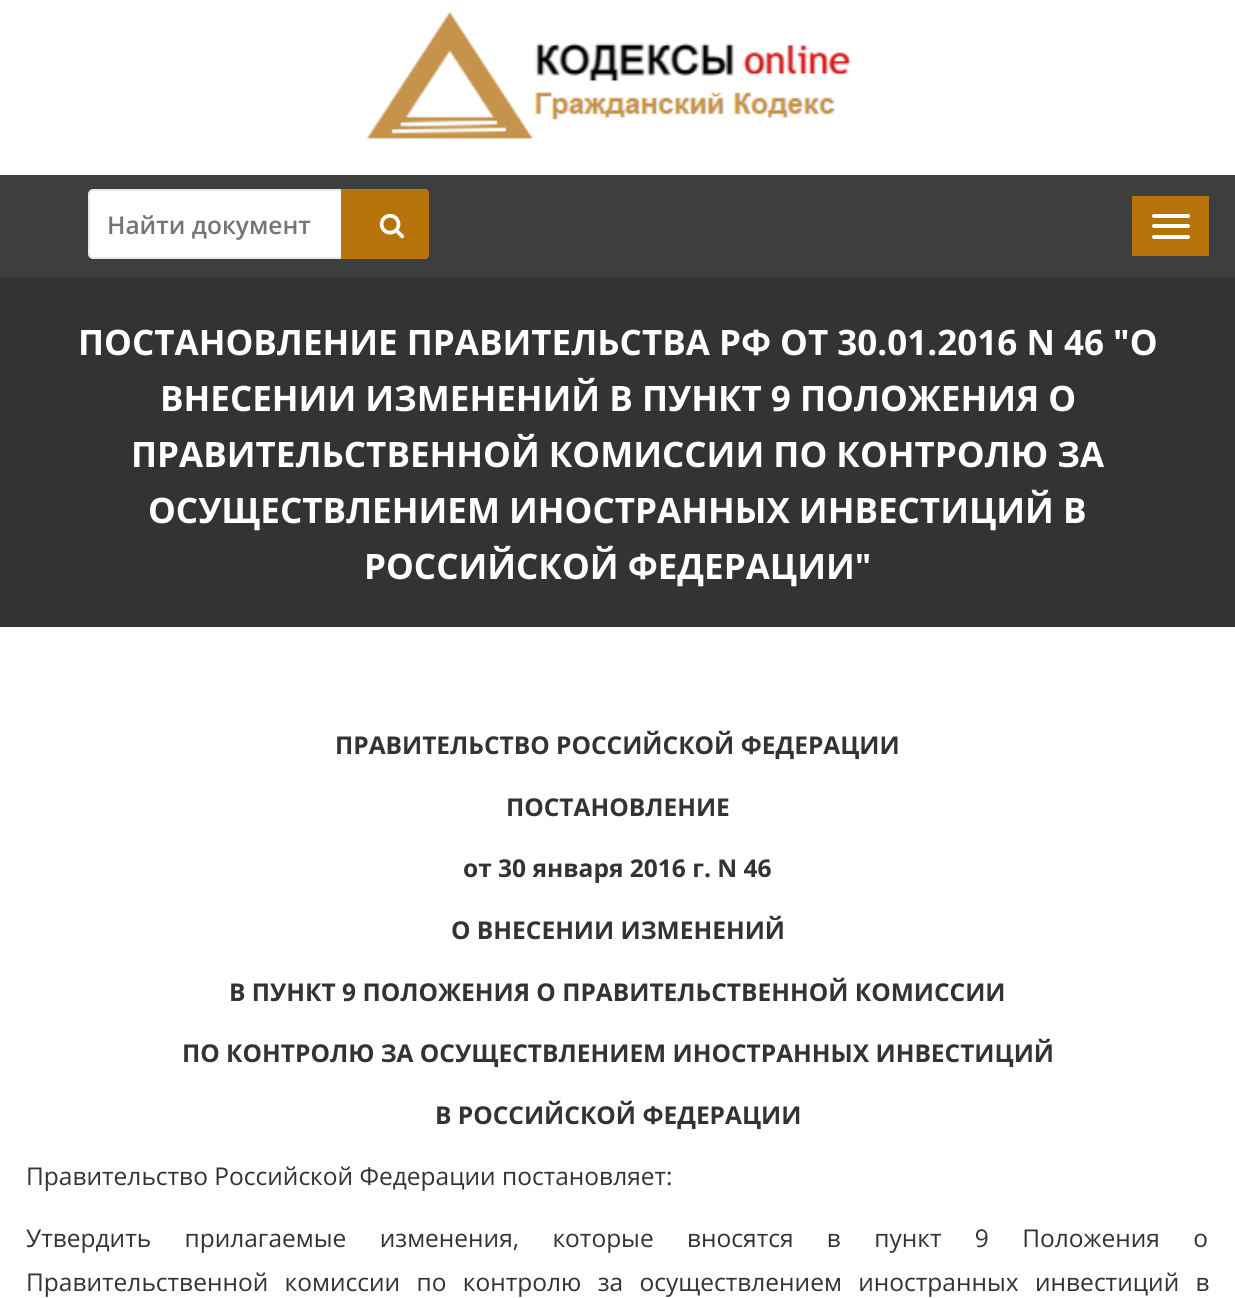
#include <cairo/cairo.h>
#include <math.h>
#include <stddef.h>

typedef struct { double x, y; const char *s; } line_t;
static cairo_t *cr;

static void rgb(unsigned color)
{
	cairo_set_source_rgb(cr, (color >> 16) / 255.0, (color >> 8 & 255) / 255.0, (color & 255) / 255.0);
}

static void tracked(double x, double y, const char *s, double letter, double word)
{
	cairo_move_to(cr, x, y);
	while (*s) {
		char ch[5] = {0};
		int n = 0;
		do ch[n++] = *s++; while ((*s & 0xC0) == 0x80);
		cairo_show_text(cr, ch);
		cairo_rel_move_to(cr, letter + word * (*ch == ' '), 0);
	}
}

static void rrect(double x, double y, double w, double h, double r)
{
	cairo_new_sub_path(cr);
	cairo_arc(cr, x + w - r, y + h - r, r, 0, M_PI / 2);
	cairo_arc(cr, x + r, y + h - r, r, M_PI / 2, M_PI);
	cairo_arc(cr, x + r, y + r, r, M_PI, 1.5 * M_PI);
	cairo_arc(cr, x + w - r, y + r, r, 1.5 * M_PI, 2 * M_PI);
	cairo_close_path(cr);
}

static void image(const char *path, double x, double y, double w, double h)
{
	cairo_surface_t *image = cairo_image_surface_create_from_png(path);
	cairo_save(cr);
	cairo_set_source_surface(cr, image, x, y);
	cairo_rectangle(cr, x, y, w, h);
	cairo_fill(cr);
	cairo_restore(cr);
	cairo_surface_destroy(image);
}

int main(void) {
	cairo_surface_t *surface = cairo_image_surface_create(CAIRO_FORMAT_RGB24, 1235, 1298);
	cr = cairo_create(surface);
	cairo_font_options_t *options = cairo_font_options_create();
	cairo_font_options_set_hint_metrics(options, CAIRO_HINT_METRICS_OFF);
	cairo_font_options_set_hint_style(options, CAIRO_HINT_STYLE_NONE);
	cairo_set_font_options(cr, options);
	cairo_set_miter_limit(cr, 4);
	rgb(0xffffff);
	cairo_paint(cr);
	image("img/1.png", 367, 12, 484, 127);
	rgb(0x3d3e3e);
	cairo_rectangle(cr, 0, 175, 1235, 102);
	cairo_fill(cr);
	rgb(0xffffff);
	rrect(89, 190, 339, 68, 4);
	cairo_fill_preserve(cr);
	rgb(0xe9e9e9);
	cairo_stroke(cr);
	rgb(0xb57309);
	cairo_new_path(cr);
	cairo_move_to(cr, 341, 189);
	cairo_line_to(cr, 424, 189);
	cairo_curve_to(cr, 427, 189, 429, 191, 429, 194);
	cairo_line_to(cr, 429, 254);
	cairo_curve_to(cr, 429, 257, 427, 259, 424, 259);
	cairo_line_to(cr, 341, 259);
	cairo_close_path(cr);
	cairo_fill(cr);
	image("img/2.png", 379, 213, 26, 26);
	cairo_rectangle(cr, 1132, 196, 77, 60);
	cairo_fill(cr);
	rgb(0xffffff);
	rrect(1152, 214, 38, 4, 2);
	cairo_fill(cr);
	rrect(1152, 224, 38, 4, 2);
	cairo_fill(cr);
	rrect(1152, 235, 38, 4, 2);
	cairo_fill(cr);
	rgb(0x333333);
	cairo_rectangle(cr, 0, 277, 1235, 350);
	cairo_fill(cr);
	cairo_select_font_face(cr, "Open Sans SemiBold", CAIRO_FONT_SLANT_NORMAL, CAIRO_FONT_WEIGHT_NORMAL);
	cairo_set_font_size(cr, 24.5);
	rgb(0x757575);
	cairo_move_to(cr, 107, 234);
	cairo_show_text(cr, "Найти документ");
	cairo_select_font_face(cr, "Open Sans", CAIRO_FONT_SLANT_NORMAL, CAIRO_FONT_WEIGHT_BOLD);
	cairo_set_font_size(cr, 35);
	rgb(0xffffff);
	{
		static const line_t items[] = {
			{78, 355, "ПОСТАНОВЛЕНИЕ ПРАВИТЕЛЬСТВА РФ ОТ 30.01.2016 N 46 \"О"},
			{160, 411, "ВНЕСЕНИИ ИЗМЕНЕНИЙ В ПУНКТ 9 ПОЛОЖЕНИЯ О"},
			{131, 467, "ПРАВИТЕЛЬСТВЕННОЙ КОМИССИИ ПО КОНТРОЛЮ ЗА"},
			{148, 523, "ОСУЩЕСТВЛЕНИЕМ ИНОСТРАННЫХ ИНВЕСТИЦИЙ В"},
			{364, 579, "РОССИЙСКОЙ ФЕДЕРАЦИИ\""},
		};
		for (size_t i = 0; i < sizeof items / sizeof *items; i++) {
			cairo_move_to(cr, items[i].x, items[i].y);
			cairo_show_text(cr, items[i].s);
		}
	}
	cairo_set_font_size(cr, 24.5);
	rgb(0x333333);
	{
		static const line_t items[] = {
			{335, 754, "ПРАВИТЕЛЬСТВО РОССИЙСКОЙ ФЕДЕРАЦИИ"},
			{506, 816, "ПОСТАНОВЛЕНИЕ"},
			{463, 877, "от 30 января 2016 г. N 46"},
			{451, 939, "О ВНЕСЕНИИ ИЗМЕНЕНИЙ"},
			{229, 1001, "В ПУНКТ 9 ПОЛОЖЕНИЯ О ПРАВИТЕЛЬСТВЕННОЙ КОМИССИИ"},
			{182, 1062, "ПО КОНТРОЛЮ ЗА ОСУЩЕСТВЛЕНИЕМ ИНОСТРАННЫХ ИНВЕСТИЦИЙ"},
			{435, 1124, "В РОССИЙСКОЙ ФЕДЕРАЦИИ"},
		};
		for (size_t i = 0; i < sizeof items / sizeof *items; i++) {
			cairo_move_to(cr, items[i].x, items[i].y);
			cairo_show_text(cr, items[i].s);
		}
	}
	cairo_select_font_face(cr, "Open Sans", CAIRO_FONT_SLANT_NORMAL, CAIRO_FONT_WEIGHT_NORMAL);
	cairo_move_to(cr, 26, 1185);
	cairo_show_text(cr, "Правительство Российской Федерации постановляет:");
	tracked(26, 1247, "Утвердить прилагаемые изменения, которые вносятся в пункт 9 Положения о", 0, 27);
	tracked(26, 1291, "Правительственной комиссии по контролю за осуществлением иностранных инвестиций в", 0, 10);
	cairo_surface_write_to_png(surface, "page.png");
	cairo_font_options_destroy(options);
	cairo_destroy(cr);
	cairo_surface_destroy(surface);
	return 0;
}
